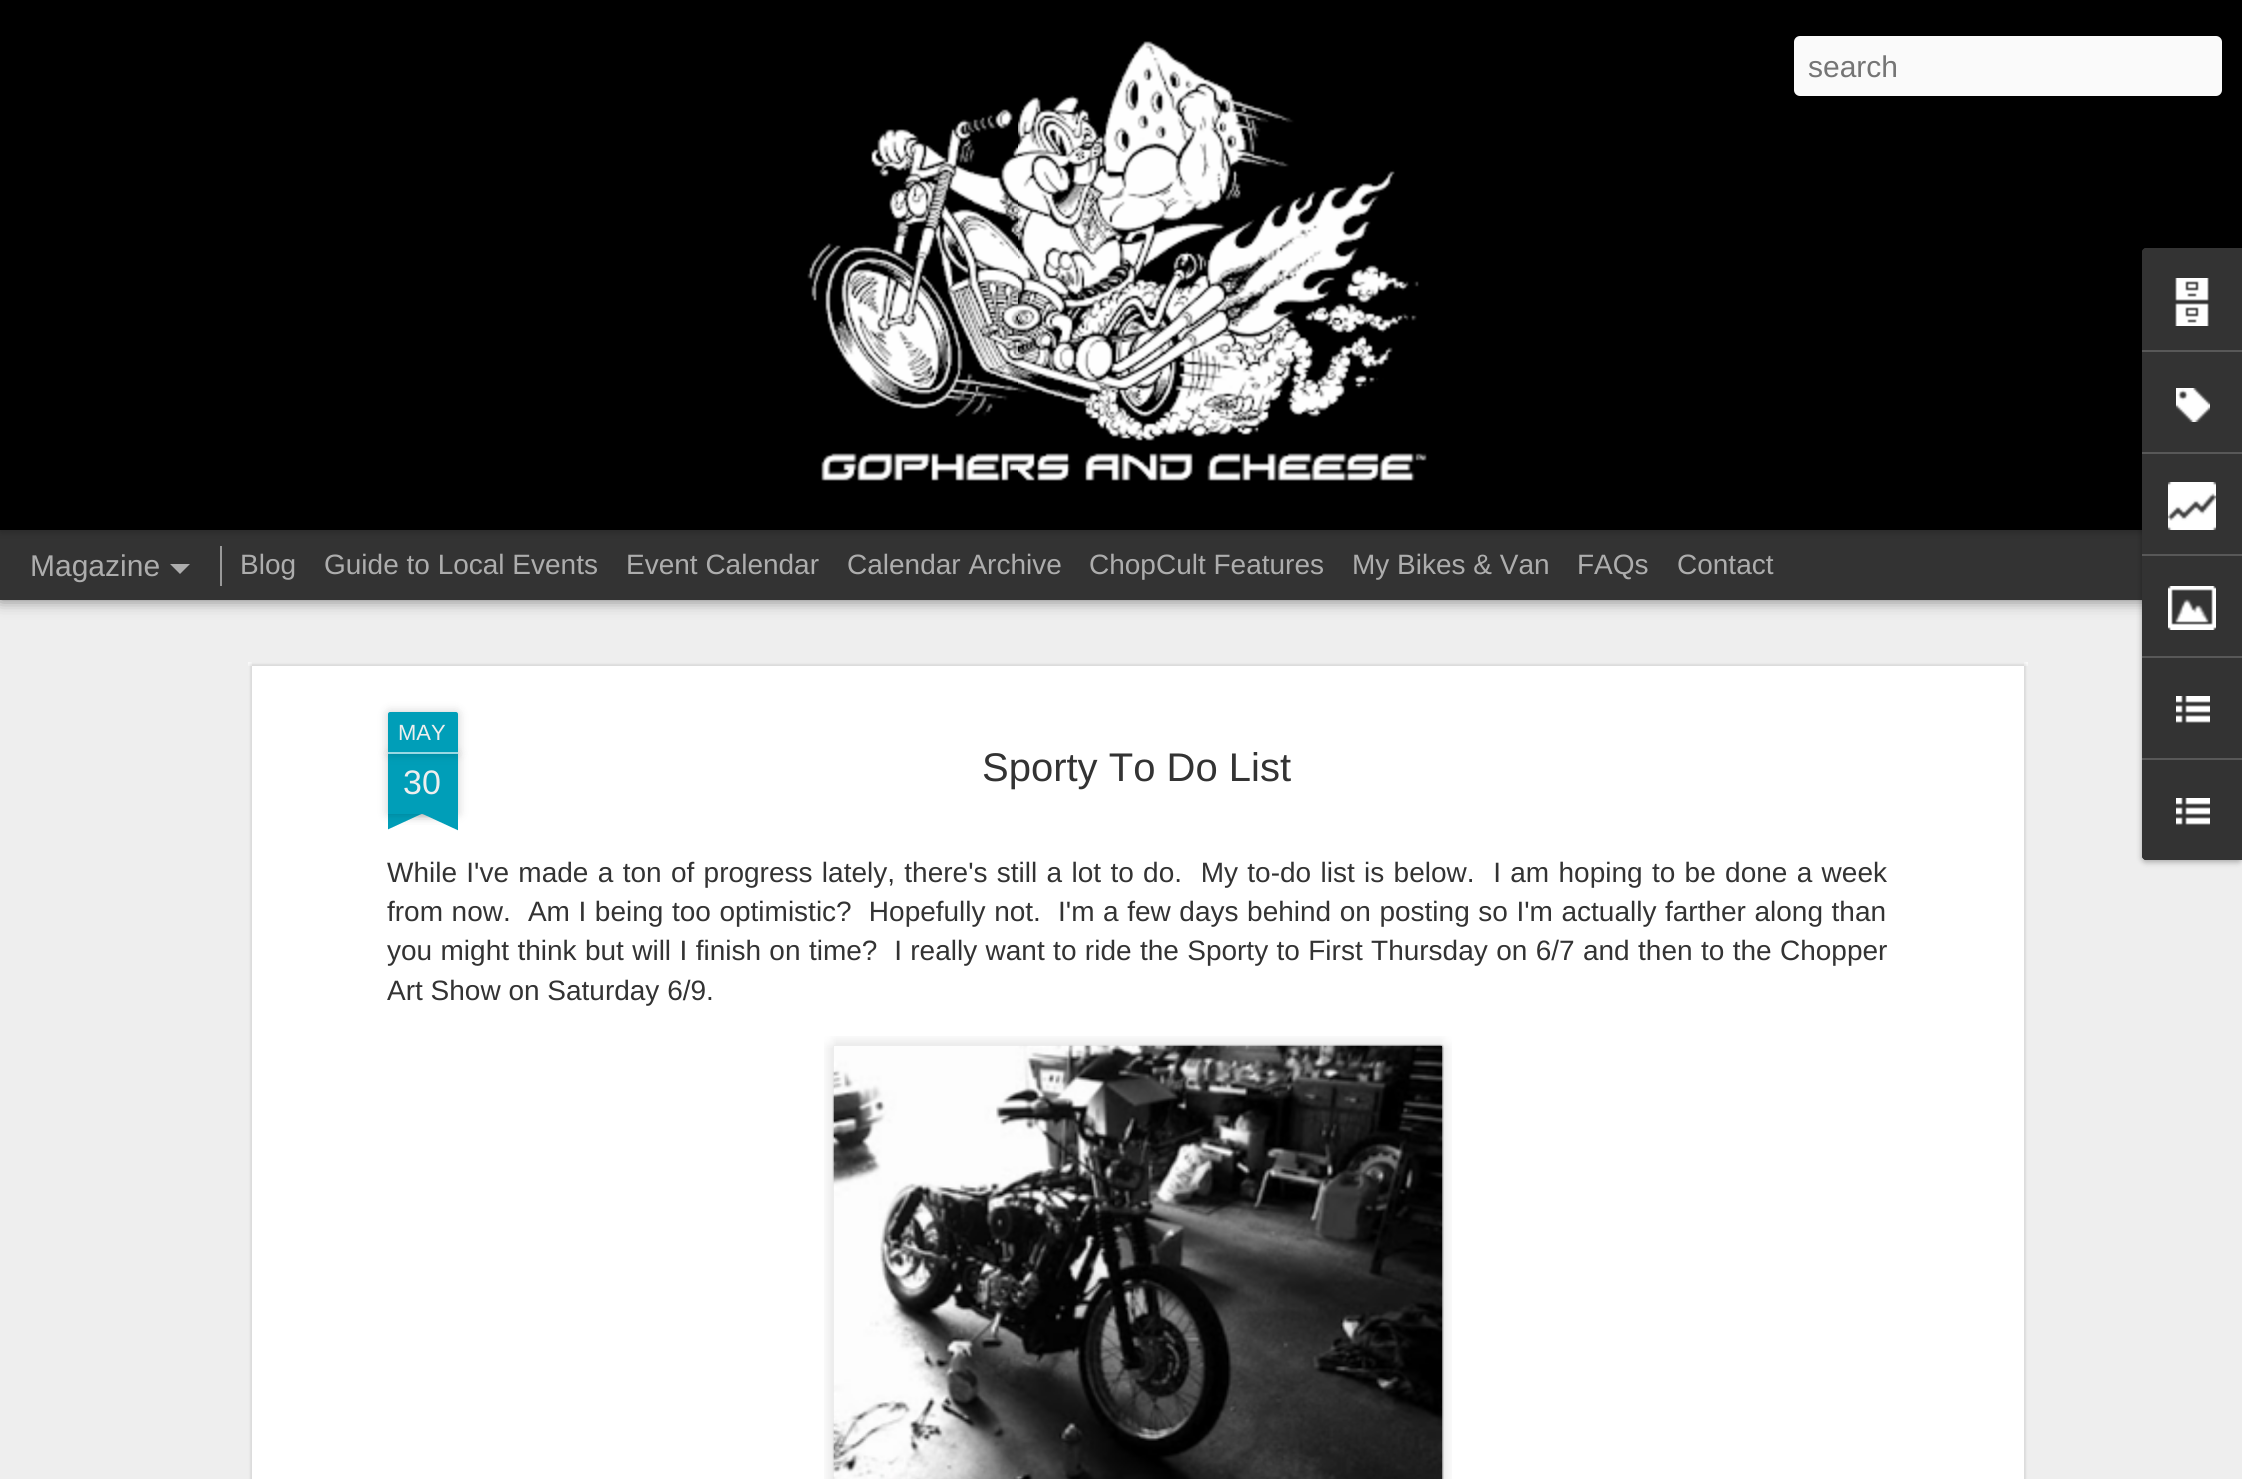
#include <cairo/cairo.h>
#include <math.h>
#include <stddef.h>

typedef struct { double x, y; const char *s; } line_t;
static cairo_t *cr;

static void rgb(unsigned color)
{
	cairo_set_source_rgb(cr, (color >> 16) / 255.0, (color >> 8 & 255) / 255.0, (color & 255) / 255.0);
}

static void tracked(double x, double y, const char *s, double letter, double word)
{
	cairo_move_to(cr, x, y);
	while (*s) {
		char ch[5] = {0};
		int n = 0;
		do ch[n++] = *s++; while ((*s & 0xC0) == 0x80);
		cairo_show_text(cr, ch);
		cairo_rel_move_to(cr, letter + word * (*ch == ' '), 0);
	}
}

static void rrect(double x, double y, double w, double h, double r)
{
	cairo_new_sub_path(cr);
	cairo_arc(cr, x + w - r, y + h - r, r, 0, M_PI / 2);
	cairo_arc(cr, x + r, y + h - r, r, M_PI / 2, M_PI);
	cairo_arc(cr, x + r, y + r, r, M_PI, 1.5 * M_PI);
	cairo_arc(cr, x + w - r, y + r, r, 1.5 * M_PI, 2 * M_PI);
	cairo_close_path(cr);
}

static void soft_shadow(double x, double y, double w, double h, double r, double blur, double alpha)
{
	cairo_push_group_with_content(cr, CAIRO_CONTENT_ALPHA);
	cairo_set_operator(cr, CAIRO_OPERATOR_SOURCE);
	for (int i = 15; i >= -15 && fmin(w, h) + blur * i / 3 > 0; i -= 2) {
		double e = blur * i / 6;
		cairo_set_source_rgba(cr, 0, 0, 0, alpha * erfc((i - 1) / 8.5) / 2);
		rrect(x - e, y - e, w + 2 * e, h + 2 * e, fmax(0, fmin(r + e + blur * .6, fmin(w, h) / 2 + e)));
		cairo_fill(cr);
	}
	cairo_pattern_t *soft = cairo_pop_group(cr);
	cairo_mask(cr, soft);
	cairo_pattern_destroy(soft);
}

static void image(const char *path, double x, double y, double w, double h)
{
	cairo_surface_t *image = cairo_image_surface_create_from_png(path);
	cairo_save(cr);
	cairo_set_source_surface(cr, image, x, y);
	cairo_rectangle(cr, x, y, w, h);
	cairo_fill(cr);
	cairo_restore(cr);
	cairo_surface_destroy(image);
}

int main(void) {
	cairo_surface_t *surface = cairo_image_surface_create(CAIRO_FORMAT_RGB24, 2242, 1479);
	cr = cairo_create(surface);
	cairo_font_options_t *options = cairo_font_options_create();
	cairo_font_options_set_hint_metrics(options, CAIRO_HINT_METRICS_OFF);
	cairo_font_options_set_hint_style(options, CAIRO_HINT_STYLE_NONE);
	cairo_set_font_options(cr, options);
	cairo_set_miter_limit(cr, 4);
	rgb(0xeeeeee);
	cairo_paint(cr);
	rgb(0x000000);
	soft_shadow(0, 530, 2242, 70, 0, 8, 0.5);
	rgb(0x333333);
	cairo_rectangle(cr, 0, 530, 2142, 70);
	cairo_fill(cr);
	rgb(0x000000);
	soft_shadow(0, 0, 2242, 530, 0, 5, 0.3);
	rgb(0x000000);
	cairo_rectangle(cr, 0, 0, 2242, 530);
	cairo_fill(cr);
	image("img/1.png", 807, 41, 620, 440);
	rgb(0xfafafa);
	rrect(1794, 36, 428, 60, 6);
	cairo_fill(cr);
	rgb(0xadadad);
	cairo_new_path(cr);
	cairo_move_to(cr, 170, 564);
	cairo_line_to(cr, 190, 564);
	cairo_line_to(cr, 180, 574);
	cairo_close_path(cr);
	cairo_fill(cr);
	rgb(0x999999);
	cairo_rectangle(cr, 220, 546, 2, 40);
	cairo_fill(cr);
	rgb(0x000000);
	soft_shadow(2142, 250, 100, 612, 4, 3, 0.3);
	rgb(0x333333);
	cairo_new_path(cr);
	cairo_move_to(cr, 2146, 248);
	cairo_line_to(cr, 2242, 248);
	cairo_line_to(cr, 2242, 860);
	cairo_line_to(cr, 2146, 860);
	cairo_curve_to(cr, 2144, 860, 2142, 858, 2142, 856);
	cairo_line_to(cr, 2142, 252);
	cairo_curve_to(cr, 2142, 250, 2144, 248, 2146, 248);
	cairo_close_path(cr);
	cairo_fill(cr);
	cairo_new_path(cr);
	cairo_move_to(cr, 2146, 248);
	cairo_line_to(cr, 2242, 248);
	cairo_line_to(cr, 2242, 350);
	cairo_line_to(cr, 2142, 350);
	cairo_line_to(cr, 2142, 252);
	cairo_curve_to(cr, 2142, 250, 2144, 248, 2146, 248);
	cairo_close_path(cr);
	cairo_fill(cr);
	image("img/2.png", 2175, 278, 34, 48);
	rgb(0x585858);
	cairo_rectangle(cr, 2142, 350, 100, 2);
	cairo_fill(cr);
	image("img/3.png", 2176, 388, 34, 34);
	cairo_rectangle(cr, 2142, 452, 100, 2);
	cairo_fill(cr);
	image("img/4.png", 2168, 482, 48, 48);
	cairo_rectangle(cr, 2142, 554, 100, 2);
	cairo_fill(cr);
	image("img/5.png", 2168, 586, 48, 44);
	cairo_rectangle(cr, 2142, 656, 100, 2);
	cairo_fill(cr);
	image("img/6.png", 2176, 696, 34, 27);
	rgb(0x333333);
	cairo_new_path(cr);
	cairo_move_to(cr, 2142, 758);
	cairo_line_to(cr, 2242, 758);
	cairo_line_to(cr, 2242, 860);
	cairo_line_to(cr, 2146, 860);
	cairo_curve_to(cr, 2144, 860, 2142, 858, 2142, 856);
	cairo_close_path(cr);
	cairo_fill(cr);
	rgb(0x585858);
	cairo_rectangle(cr, 2142, 758, 100, 2);
	cairo_fill(cr);
	image("img/6.png", 2176, 798, 34, 27);
	rgb(0xffffff);
	cairo_rectangle(cr, 248, 662, 1780, 817);
	cairo_fill(cr);
	image("img/7.png", 248, 662, 1780, 817);
	rgb(0x000000);
	soft_shadow(388, 754, 70, 60, 0, 5, 0.2);
	rgb(0x009eb8);
	cairo_rectangle(cr, 388, 754, 70, 60);
	cairo_fill(cr);
	rgb(0x000000);
	soft_shadow(388, 712, 70, 42, 2, 5, 0.2);
	rgb(0x009eb8);
	cairo_new_path(cr);
	cairo_move_to(cr, 390, 712);
	cairo_line_to(cr, 456, 712);
	cairo_curve_to(cr, 457, 712, 458, 713, 458, 714);
	cairo_line_to(cr, 458, 754);
	cairo_line_to(cr, 388, 754);
	cairo_line_to(cr, 388, 714);
	cairo_curve_to(cr, 388, 713, 389, 712, 390, 712);
	cairo_close_path(cr);
	cairo_fill(cr);
	rgb(0x99d8e3);
	cairo_rectangle(cr, 388, 752, 70, 2);
	cairo_fill(cr);
	cairo_save(cr);
	cairo_rectangle(cr, 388, 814, 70, 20);
	cairo_clip(cr);
	rgb(0x000000);
	soft_shadow(370, 794, 100, 20, 0, 5, 0.2);
	cairo_restore(cr);
	cairo_save(cr);
	cairo_rectangle(cr, 388, 814, 70, 20);
	cairo_clip(cr);
	rgb(0x009eb8);
	cairo_new_path(cr);
	cairo_move_to(cr, 369, 816);
	cairo_line_to(cr, 460, 774);
	cairo_line_to(cr, 469, 792);
	cairo_line_to(cr, 378, 834);
	cairo_close_path(cr);
	cairo_fill(cr);
	cairo_restore(cr);
	cairo_save(cr);
	cairo_rectangle(cr, 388, 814, 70, 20);
	cairo_clip(cr);
	rgb(0x000000);
	soft_shadow(376, 794, 100, 20, 0, 5, 0.2);
	cairo_restore(cr);
	cairo_save(cr);
	cairo_rectangle(cr, 388, 814, 70, 20);
	cairo_clip(cr);
	rgb(0x009eb8);
	cairo_new_path(cr);
	cairo_move_to(cr, 384, 774);
	cairo_line_to(cr, 475, 816);
	cairo_line_to(cr, 466, 834);
	cairo_line_to(cr, 375, 792);
	cairo_close_path(cr);
	cairo_fill(cr);
	cairo_restore(cr);
	image("img/8.png", 824, 1036, 628, 443);
	image("img/9.png", 832, 1044, 612, 435);
	cairo_select_font_face(cr, "Liberation Sans", CAIRO_FONT_SLANT_NORMAL, CAIRO_FONT_WEIGHT_NORMAL);
	cairo_set_font_size(cr, 30);
	rgb(0x757575);
	cairo_move_to(cr, 1808, 77);
	cairo_show_text(cr, "search");
	rgb(0xadadad);
	cairo_move_to(cr, 30, 576);
	cairo_show_text(cr, "Magazine");
	cairo_set_font_size(cr, 28);
	{
		static const line_t items[] = {
			{240, 574, "Blog"},
			{324, 574, "Guide to Local Events"},
			{626, 574, "Event Calendar"},
			{847, 574, "Calendar Archive"},
			{1089, 574, "ChopCult Features"},
			{1352, 574, "My Bikes & Van"},
			{1577, 574, "FAQs"},
			{1677, 574, "Contact"},
		};
		for (size_t i = 0; i < sizeof items / sizeof *items; i++) {
			cairo_move_to(cr, items[i].x, items[i].y);
			cairo_show_text(cr, items[i].s);
		}
	}
	cairo_set_font_size(cr, 22);
	rgb(0xeeeeee);
	cairo_move_to(cr, 398, 740);
	cairo_show_text(cr, "MAY");
	cairo_set_font_size(cr, 34);
	cairo_move_to(cr, 403, 794);
	cairo_show_text(cr, "30");
	cairo_set_font_size(cr, 40);
	rgb(0x333333);
	cairo_move_to(cr, 982, 781);
	cairo_show_text(cr, "Sporty To Do List");
	cairo_set_font_size(cr, 28);
	tracked(387, 882, "While I've made a ton of progress lately, there's still a lot to do.  My to-do list is below.  I am hoping to be done a week", 0, 1.55);
	tracked(387, 921, "from now.  Am I being too optimistic?  Hopefully not.  I'm a few days behind on posting so I'm actually farther along than", 0, 0.8);
	tracked(387, 960, "you might think but will I finish on time?  I really want to ride the Sporty to First Thursday on 6/7 and then to the Chopper", 0, 0.6);
	cairo_move_to(cr, 387, 1000);
	cairo_show_text(cr, "Art Show on Saturday 6/9.");
	cairo_surface_write_to_png(surface, "page.png");
	cairo_font_options_destroy(options);
	cairo_destroy(cr);
	cairo_surface_destroy(surface);
	return 0;
}
